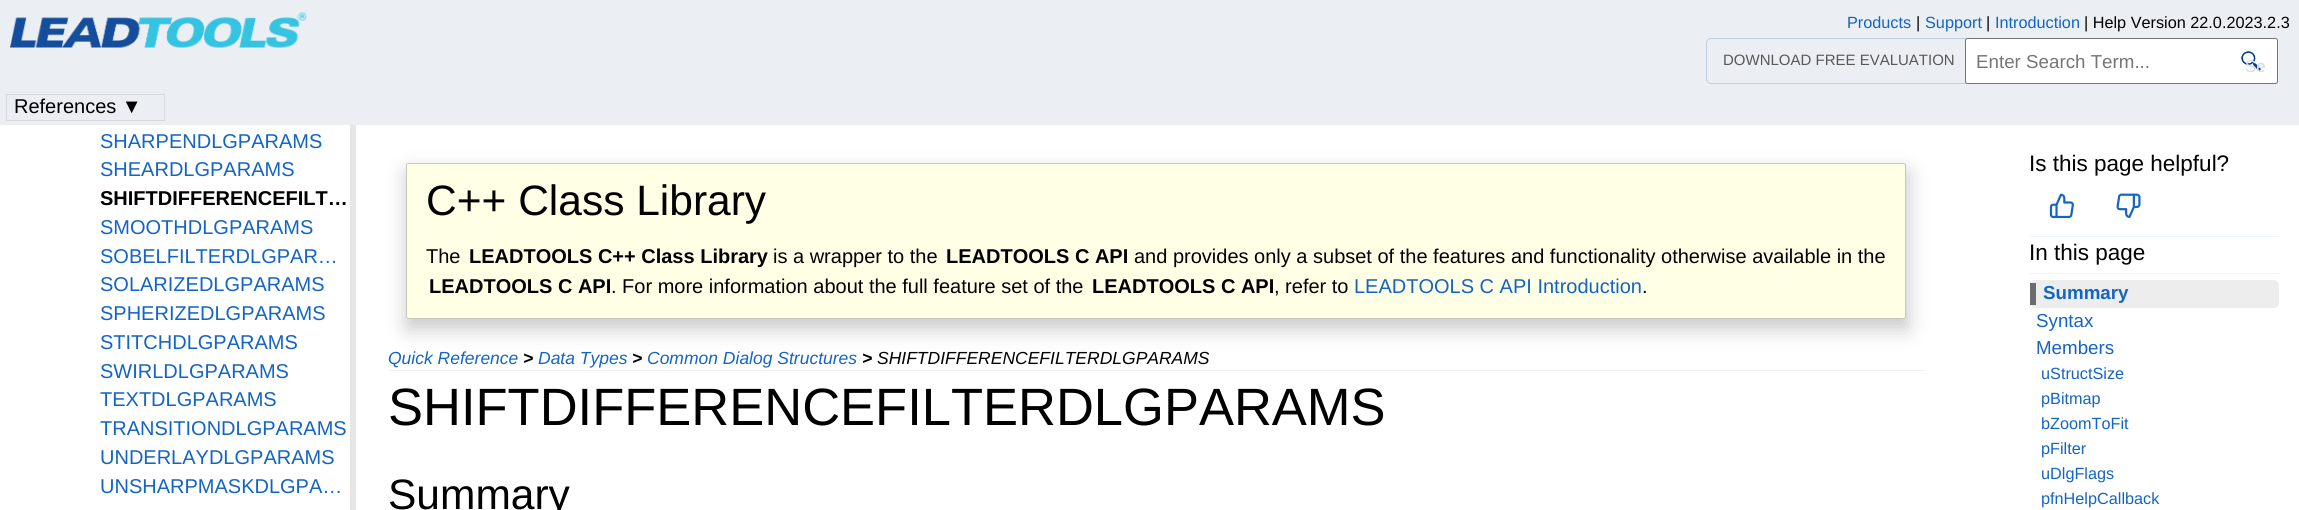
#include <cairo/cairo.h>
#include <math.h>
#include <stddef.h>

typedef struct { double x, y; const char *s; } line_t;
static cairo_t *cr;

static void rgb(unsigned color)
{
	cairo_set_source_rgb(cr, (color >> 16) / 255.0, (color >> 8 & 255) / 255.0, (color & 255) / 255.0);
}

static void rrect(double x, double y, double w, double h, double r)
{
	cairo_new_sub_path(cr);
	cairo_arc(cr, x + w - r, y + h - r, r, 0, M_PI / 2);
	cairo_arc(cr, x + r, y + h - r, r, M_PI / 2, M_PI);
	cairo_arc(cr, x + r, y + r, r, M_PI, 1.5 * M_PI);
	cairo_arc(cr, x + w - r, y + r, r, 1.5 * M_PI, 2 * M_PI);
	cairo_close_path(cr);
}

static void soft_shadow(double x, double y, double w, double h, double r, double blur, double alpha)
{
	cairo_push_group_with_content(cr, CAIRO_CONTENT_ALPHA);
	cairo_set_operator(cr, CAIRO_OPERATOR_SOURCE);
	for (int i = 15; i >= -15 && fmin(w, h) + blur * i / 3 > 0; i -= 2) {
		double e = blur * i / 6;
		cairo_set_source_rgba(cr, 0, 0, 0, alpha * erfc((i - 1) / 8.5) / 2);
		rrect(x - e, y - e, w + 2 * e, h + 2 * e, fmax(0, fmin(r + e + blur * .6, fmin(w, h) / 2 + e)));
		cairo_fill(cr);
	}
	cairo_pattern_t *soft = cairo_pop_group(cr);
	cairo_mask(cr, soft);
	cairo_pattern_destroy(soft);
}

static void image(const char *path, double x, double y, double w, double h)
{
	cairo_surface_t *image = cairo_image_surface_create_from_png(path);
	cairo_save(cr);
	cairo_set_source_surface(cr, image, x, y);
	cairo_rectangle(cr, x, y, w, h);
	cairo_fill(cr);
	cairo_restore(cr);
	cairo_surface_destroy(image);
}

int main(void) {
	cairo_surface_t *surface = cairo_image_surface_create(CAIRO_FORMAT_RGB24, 2299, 510);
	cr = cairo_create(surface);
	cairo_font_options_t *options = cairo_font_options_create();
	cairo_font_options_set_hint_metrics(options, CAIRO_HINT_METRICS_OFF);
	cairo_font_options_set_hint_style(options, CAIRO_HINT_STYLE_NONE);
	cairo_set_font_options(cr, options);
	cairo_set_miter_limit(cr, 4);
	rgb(0xffffff);
	cairo_paint(cr);
	rgb(0xebeef3);
	cairo_rectangle(cr, 0, 0, 2299, 125);
	cairo_fill(cr);
	image("img/1.png", 10, 12, 297, 36);
	rrect(1706.5, 38.5, 264, 45, 4.5);
	rgb(0xc0cee1);
	cairo_set_line_width(cr, 1);
	cairo_stroke(cr);
	rgb(0xffffff);
	rrect(1965.5, 38.5, 312, 45, 2);
	cairo_fill_preserve(cr);
	rgb(0x767676);
	cairo_stroke(cr);
	image("img/2.png", 2241, 51, 20, 20);
	cairo_rectangle(cr, 6.5, 94.5, 158, 26);
	rgb(0xd6d8dc);
	cairo_stroke(cr);
	rgb(0xe6e6e6);
	cairo_rectangle(cr, 350, 125, 6, 385);
	cairo_fill(cr);
	cairo_save(cr);
	cairo_set_fill_rule(cr, CAIRO_FILL_RULE_EVEN_ODD);
	cairo_new_path(cr);
	cairo_move_to(cr, 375, 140);
	cairo_line_to(cr, 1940, 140);
	cairo_line_to(cr, 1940, 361);
	cairo_line_to(cr, 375, 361);
	cairo_close_path(cr);
	cairo_move_to(cr, 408, 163);
	cairo_line_to(cr, 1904, 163);
	cairo_curve_to(cr, 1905, 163, 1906, 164, 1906, 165);
	cairo_line_to(cr, 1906, 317);
	cairo_curve_to(cr, 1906, 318, 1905, 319, 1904, 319);
	cairo_line_to(cr, 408, 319);
	cairo_curve_to(cr, 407, 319, 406, 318, 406, 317);
	cairo_line_to(cr, 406, 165);
	cairo_curve_to(cr, 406, 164, 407, 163, 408, 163);
	cairo_close_path(cr);
	cairo_clip(cr);
	rgb(0x000000);
	soft_shadow(406, 171, 1503, 159, 3, 10, 0.2);
	cairo_restore(cr);
	cairo_set_source_rgba(cr, 1, 1, 0, 0.1);
	rrect(406, 163, 1500, 156, 2);
	cairo_fill(cr);
	rrect(406.5, 163.5, 1499, 155, 1.5);
	cairo_set_source_rgba(cr, 0.463, 0.463, 0.463, 0.4);
	cairo_stroke(cr);
	image("img/3.png", 2049, 193, 25, 26);
	image("img/4.png", 2116, 193, 25, 25);
	rgb(0xedf5fb);
	cairo_rectangle(cr, 2029, 236, 250, 1);
	cairo_fill(cr);
	cairo_rectangle(cr, 2029, 273, 250, 1);
	cairo_fill(cr);
	rgb(0xededed);
	rrect(2030, 280, 249, 28, 5);
	cairo_fill(cr);
	cairo_set_source_rgba(cr, 0.302, 0.302, 0.302, 0.8);
	cairo_rectangle(cr, 2030, 283, 6, 22);
	cairo_fill(cr);
	rgb(0xf1f1f1);
	cairo_rectangle(cr, 388, 370, 1537, 1);
	cairo_fill(cr);
	cairo_select_font_face(cr, "Liberation Sans", CAIRO_FONT_SLANT_NORMAL, CAIRO_FONT_WEIGHT_NORMAL);
	cairo_set_font_size(cr, 16.25);
	rgb(0x1364c4);
	cairo_move_to(cr, 1847, 28);
	cairo_show_text(cr, "Products");
	rgb(0x000000);
	cairo_move_to(cr, 1916, 28);
	cairo_show_text(cr, "|");
	rgb(0x1364c4);
	cairo_move_to(cr, 1925, 28);
	cairo_show_text(cr, "Support");
	rgb(0x000000);
	cairo_move_to(cr, 1986, 28);
	cairo_show_text(cr, "|");
	rgb(0x1364c4);
	cairo_move_to(cr, 1995, 28);
	cairo_show_text(cr, "Introduction");
	rgb(0x000000);
	cairo_move_to(cr, 2084, 28);
	cairo_show_text(cr, "| Help Version 22.0.2023.2.3");
	cairo_set_font_size(cr, 15);
	rgb(0x585858);
	cairo_move_to(cr, 1723, 65);
	cairo_show_text(cr, "DOWNLOAD FREE EVALUATION");
	cairo_set_font_size(cr, 18.75);
	rgb(0x757575);
	cairo_move_to(cr, 1976, 68);
	cairo_show_text(cr, "Enter Search Term...");
	cairo_set_font_size(cr, 17);
	rgb(0xd2ddea);
	cairo_move_to(cr, 2245, 72);
	cairo_show_text(cr, "Se");
	cairo_set_font_size(cr, 20);
	rgb(0x000000);
	cairo_move_to(cr, 14, 113);
	cairo_show_text(cr, "References ▼");
	rgb(0x1364c4);
	cairo_move_to(cr, 100, 148);
	cairo_show_text(cr, "SHARPENDLGPARAMS");
	cairo_move_to(cr, 100, 176);
	cairo_show_text(cr, "SHEARDLGPARAMS");
	cairo_select_font_face(cr, "Liberation Sans", CAIRO_FONT_SLANT_NORMAL, CAIRO_FONT_WEIGHT_BOLD);
	rgb(0x000000);
	cairo_move_to(cr, 100, 205);
	cairo_show_text(cr, "SHIFTDIFFERENCEFILT…");
	cairo_select_font_face(cr, "Liberation Sans", CAIRO_FONT_SLANT_NORMAL, CAIRO_FONT_WEIGHT_NORMAL);
	rgb(0x1364c4);
	{
		static const line_t items[] = {
			{100, 234, "SMOOTHDLGPARAMS"},
			{100, 263, "SOBELFILTERDLGPAR…"},
			{100, 291, "SOLARIZEDLGPARAMS"},
			{100, 320, "SPHERIZEDLGPARAMS"},
			{100, 349, "STITCHDLGPARAMS"},
			{100, 378, "SWIRLDLGPARAMS"},
			{100, 406, "TEXTDLGPARAMS"},
			{100, 435, "TRANSITIONDLGPARAMS"},
			{100, 464, "UNDERLAYDLGPARAMS"},
			{100, 493, "UNSHARPMASKDLGPA…"},
		};
		for (size_t i = 0; i < sizeof items / sizeof *items; i++) {
			cairo_move_to(cr, items[i].x, items[i].y);
			cairo_show_text(cr, items[i].s);
		}
	}
	cairo_set_font_size(cr, 42.5);
	rgb(0x000000);
	cairo_move_to(cr, 426, 215);
	cairo_show_text(cr, "C++ Class Library");
	cairo_set_font_size(cr, 20);
	cairo_move_to(cr, 426, 263);
	cairo_show_text(cr, "The");
	cairo_select_font_face(cr, "Liberation Sans", CAIRO_FONT_SLANT_NORMAL, CAIRO_FONT_WEIGHT_BOLD);
	cairo_move_to(cr, 469, 263);
	cairo_show_text(cr, "LEADTOOLS C++ Class Library");
	cairo_select_font_face(cr, "Liberation Sans", CAIRO_FONT_SLANT_NORMAL, CAIRO_FONT_WEIGHT_NORMAL);
	cairo_move_to(cr, 773, 263);
	cairo_show_text(cr, "is a wrapper to the");
	cairo_select_font_face(cr, "Liberation Sans", CAIRO_FONT_SLANT_NORMAL, CAIRO_FONT_WEIGHT_BOLD);
	cairo_move_to(cr, 946, 263);
	cairo_show_text(cr, "LEADTOOLS C API");
	cairo_select_font_face(cr, "Liberation Sans", CAIRO_FONT_SLANT_NORMAL, CAIRO_FONT_WEIGHT_NORMAL);
	cairo_move_to(cr, 1134, 263);
	cairo_show_text(cr, "and provides only a subset of the features and functionality otherwise available in the");
	cairo_select_font_face(cr, "Liberation Sans", CAIRO_FONT_SLANT_NORMAL, CAIRO_FONT_WEIGHT_BOLD);
	cairo_move_to(cr, 429, 293);
	cairo_show_text(cr, "LEADTOOLS C API");
	cairo_select_font_face(cr, "Liberation Sans", CAIRO_FONT_SLANT_NORMAL, CAIRO_FONT_WEIGHT_NORMAL);
	cairo_move_to(cr, 611, 293);
	cairo_show_text(cr, ". For more information about the full feature set of the");
	cairo_select_font_face(cr, "Liberation Sans", CAIRO_FONT_SLANT_NORMAL, CAIRO_FONT_WEIGHT_BOLD);
	cairo_move_to(cr, 1092, 293);
	cairo_show_text(cr, "LEADTOOLS C API");
	cairo_select_font_face(cr, "Liberation Sans", CAIRO_FONT_SLANT_NORMAL, CAIRO_FONT_WEIGHT_NORMAL);
	cairo_move_to(cr, 1274, 293);
	cairo_show_text(cr, ", refer to");
	rgb(0x1364c4);
	cairo_move_to(cr, 1354, 293);
	cairo_show_text(cr, "LEADTOOLS C API Introduction");
	rgb(0x000000);
	cairo_move_to(cr, 1642, 293);
	cairo_show_text(cr, ".");
	cairo_set_font_size(cr, 22.5);
	cairo_move_to(cr, 2029, 171);
	cairo_show_text(cr, "Is this page helpful?");
	cairo_move_to(cr, 2029, 260);
	cairo_show_text(cr, "In this page");
	cairo_select_font_face(cr, "Liberation Sans", CAIRO_FONT_SLANT_NORMAL, CAIRO_FONT_WEIGHT_BOLD);
	cairo_set_font_size(cr, 18.75);
	rgb(0x1364c4);
	cairo_move_to(cr, 2043, 299);
	cairo_show_text(cr, "Summary");
	cairo_select_font_face(cr, "Liberation Sans", CAIRO_FONT_SLANT_NORMAL, CAIRO_FONT_WEIGHT_NORMAL);
	cairo_move_to(cr, 2036, 327);
	cairo_show_text(cr, "Syntax");
	cairo_move_to(cr, 2036, 354);
	cairo_show_text(cr, "Members");
	cairo_set_font_size(cr, 16.25);
	{
		static const line_t items[] = {
			{2041, 379, "uStructSize"},
			{2041, 404, "pBitmap"},
			{2041, 429, "bZoomToFit"},
			{2041, 454, "pFilter"},
			{2041, 479, "uDlgFlags"},
			{2041, 504, "pfnHelpCallback"},
		};
		for (size_t i = 0; i < sizeof items / sizeof *items; i++) {
			cairo_move_to(cr, items[i].x, items[i].y);
			cairo_show_text(cr, items[i].s);
		}
	}
	cairo_select_font_face(cr, "Liberation Sans", CAIRO_FONT_SLANT_ITALIC, CAIRO_FONT_WEIGHT_NORMAL);
	cairo_set_font_size(cr, 17.5);
	cairo_move_to(cr, 388, 364);
	cairo_show_text(cr, "Quick Reference");
	cairo_select_font_face(cr, "Liberation Sans", CAIRO_FONT_SLANT_ITALIC, CAIRO_FONT_WEIGHT_BOLD);
	rgb(0x000000);
	cairo_move_to(cr, 523, 364);
	cairo_show_text(cr, ">");
	cairo_select_font_face(cr, "Liberation Sans", CAIRO_FONT_SLANT_ITALIC, CAIRO_FONT_WEIGHT_NORMAL);
	rgb(0x1364c4);
	cairo_move_to(cr, 538, 364);
	cairo_show_text(cr, "Data Types");
	cairo_select_font_face(cr, "Liberation Sans", CAIRO_FONT_SLANT_ITALIC, CAIRO_FONT_WEIGHT_BOLD);
	rgb(0x000000);
	cairo_move_to(cr, 632, 364);
	cairo_show_text(cr, ">");
	cairo_select_font_face(cr, "Liberation Sans", CAIRO_FONT_SLANT_ITALIC, CAIRO_FONT_WEIGHT_NORMAL);
	rgb(0x1364c4);
	cairo_move_to(cr, 647, 364);
	cairo_show_text(cr, "Common Dialog Structures");
	cairo_select_font_face(cr, "Liberation Sans", CAIRO_FONT_SLANT_ITALIC, CAIRO_FONT_WEIGHT_BOLD);
	rgb(0x000000);
	cairo_move_to(cr, 862, 364);
	cairo_show_text(cr, ">");
	cairo_select_font_face(cr, "Liberation Sans", CAIRO_FONT_SLANT_ITALIC, CAIRO_FONT_WEIGHT_NORMAL);
	cairo_move_to(cr, 877, 364);
	cairo_show_text(cr, "SHIFTDIFFERENCEFILTERDLGPARAMS");
	cairo_select_font_face(cr, "Liberation Sans", CAIRO_FONT_SLANT_NORMAL, CAIRO_FONT_WEIGHT_NORMAL);
	cairo_set_font_size(cr, 52.5);
	cairo_move_to(cr, 388, 425);
	cairo_show_text(cr, "SHIFTDIFFERENCEFILTERDLGPARAMS");
	cairo_set_font_size(cr, 42.5);
	cairo_move_to(cr, 388, 509);
	cairo_show_text(cr, "Summary");
	cairo_surface_write_to_png(surface, "page.png");
	cairo_font_options_destroy(options);
	cairo_destroy(cr);
	cairo_surface_destroy(surface);
	return 0;
}
